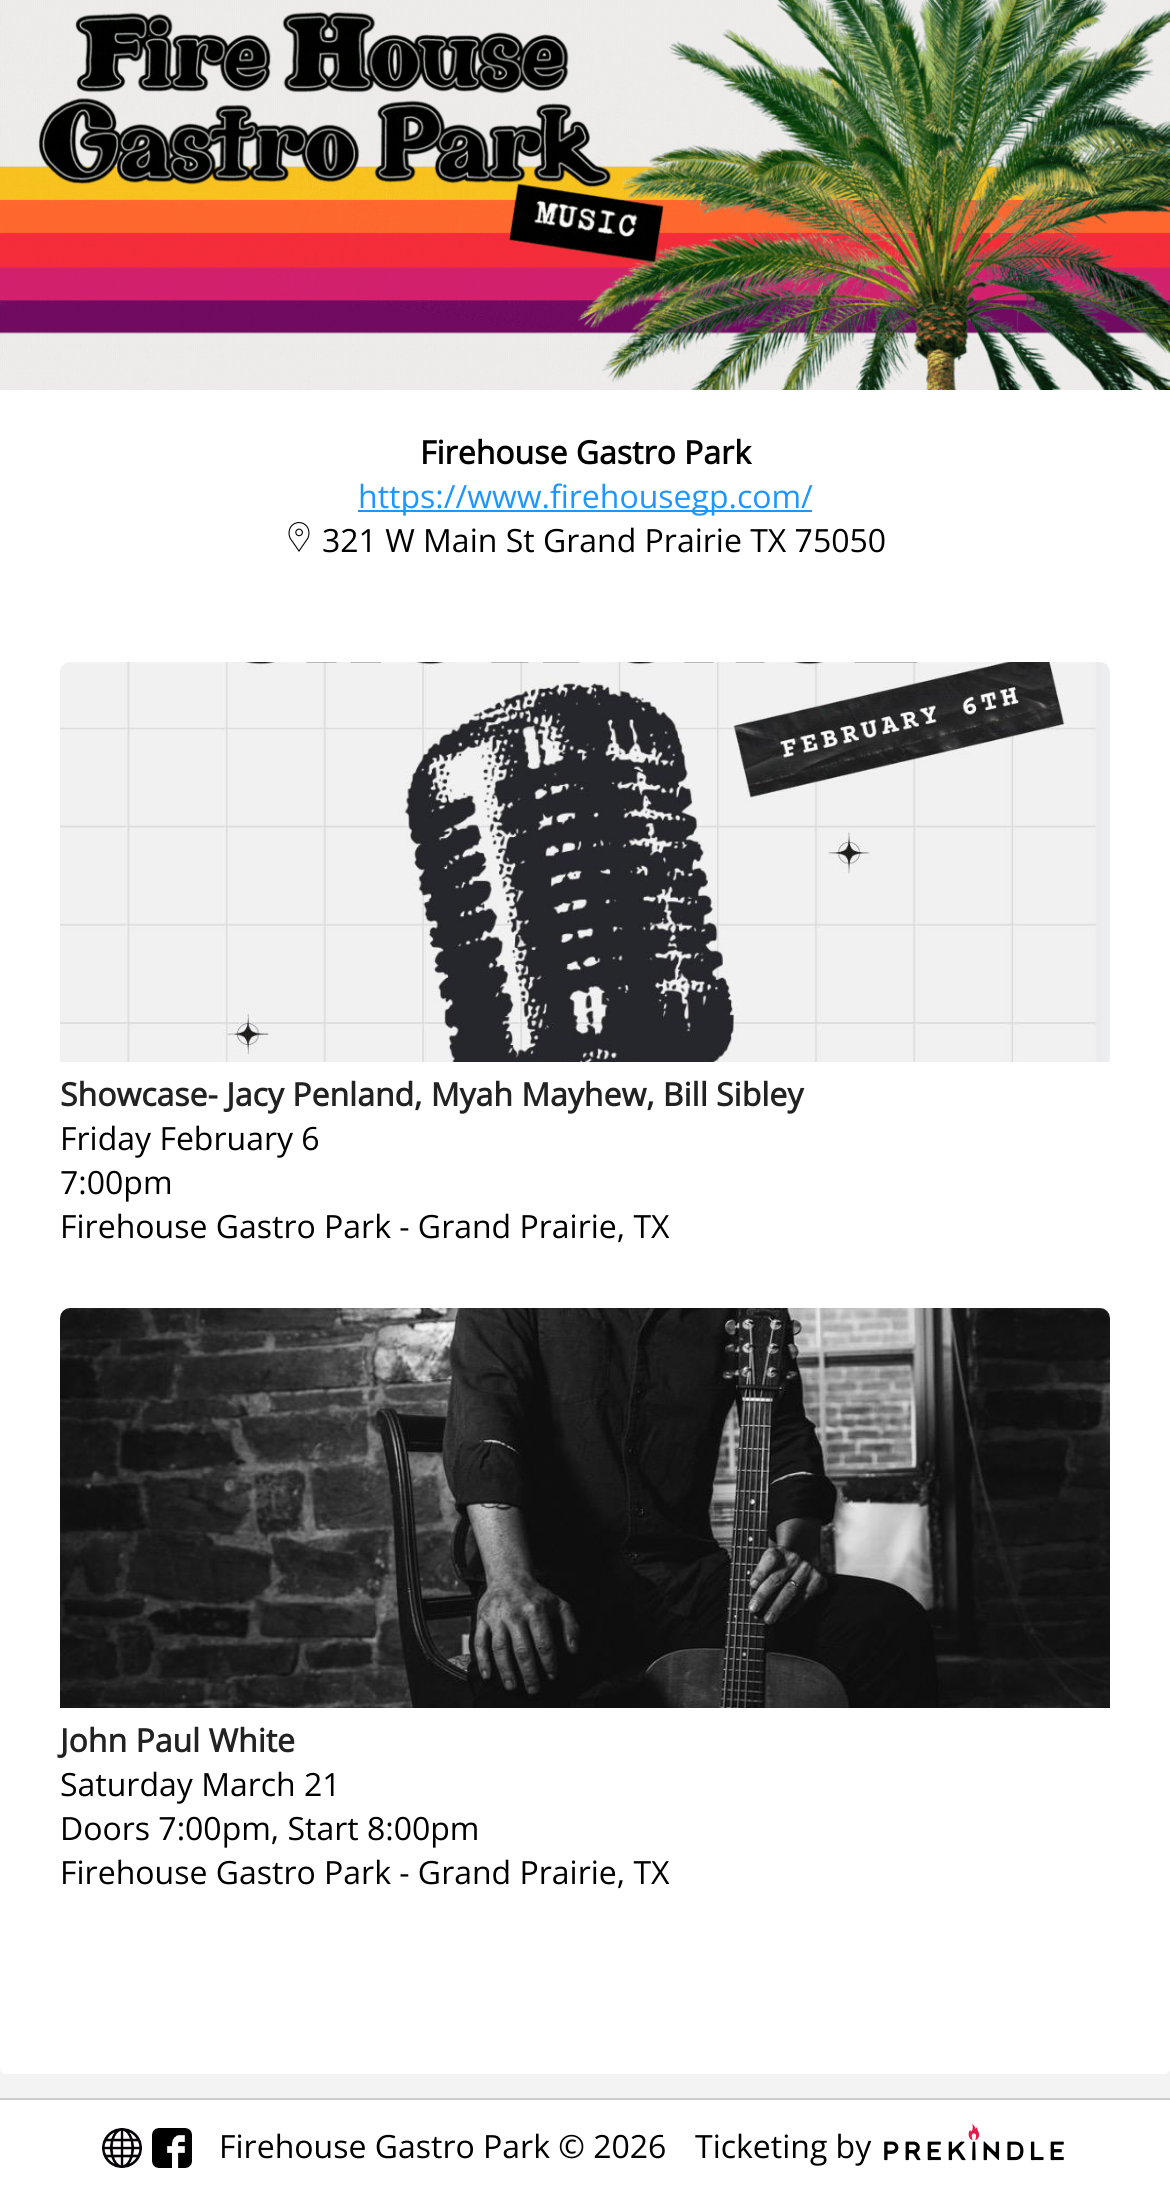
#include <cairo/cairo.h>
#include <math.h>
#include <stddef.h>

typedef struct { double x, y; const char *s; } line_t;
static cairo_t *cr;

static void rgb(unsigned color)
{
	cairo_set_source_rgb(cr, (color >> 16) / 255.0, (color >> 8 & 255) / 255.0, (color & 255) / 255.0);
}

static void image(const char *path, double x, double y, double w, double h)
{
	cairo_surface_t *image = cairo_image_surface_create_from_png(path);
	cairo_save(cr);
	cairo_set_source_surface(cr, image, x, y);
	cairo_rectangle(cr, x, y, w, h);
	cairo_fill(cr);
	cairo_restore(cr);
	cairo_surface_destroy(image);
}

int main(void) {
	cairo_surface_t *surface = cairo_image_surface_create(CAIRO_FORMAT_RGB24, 1170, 2187);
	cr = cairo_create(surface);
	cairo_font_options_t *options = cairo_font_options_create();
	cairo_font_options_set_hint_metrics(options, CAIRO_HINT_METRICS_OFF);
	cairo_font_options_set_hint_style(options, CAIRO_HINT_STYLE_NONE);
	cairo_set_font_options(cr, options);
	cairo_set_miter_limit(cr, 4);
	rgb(0xf3f3f3);
	cairo_paint(cr);
	rgb(0xffffff);
	cairo_new_path(cr);
	cairo_move_to(cr, 0, 0);
	cairo_line_to(cr, 1170, 0);
	cairo_line_to(cr, 1170, 2068);
	cairo_curve_to(cr, 1170, 2071.5, 1167.5, 2074, 1164, 2074);
	cairo_line_to(cr, 6, 2074);
	cairo_curve_to(cr, 2.5, 2074, 0, 2071.5, 0, 2068);
	cairo_close_path(cr);
	cairo_fill(cr);
	image("img/1.png", 0, 0, 1170, 390);
	rgb(0x1e96ff);
	cairo_rectangle(cr, 358, 510, 454, 2);
	cairo_fill(cr);
	image("img/2.png", 288, 522, 22, 30);
	image("img/3.png", 60, 662, 1050, 400);
	image("img/4.png", 60, 1308, 1050, 400);
	rgb(0xffffff);
	cairo_rectangle(cr, 0, 2100, 1170, 87);
	cairo_fill(cr);
	rgb(0xcccccc);
	cairo_rectangle(cr, 0, 2098, 1170, 2);
	cairo_fill(cr);
	image("img/5.png", 102, 2128, 40, 40);
	image("img/6.png", 152, 2128, 40, 40);
	image("img/7.png", 884, 2124, 180, 37);
	cairo_select_font_face(cr, "Open Sans", CAIRO_FONT_SLANT_NORMAL, CAIRO_FONT_WEIGHT_BOLD);
	cairo_set_font_size(cr, 32);
	rgb(0x000000);
	cairo_move_to(cr, 420, 464);
	cairo_show_text(cr, "Firehouse Gastro Park");
	cairo_select_font_face(cr, "Open Sans", CAIRO_FONT_SLANT_NORMAL, CAIRO_FONT_WEIGHT_NORMAL);
	rgb(0x1e96ff);
	cairo_move_to(cr, 358, 508);
	cairo_show_text(cr, "https://www.firehousegp.com/");
	rgb(0x000000);
	cairo_move_to(cr, 322, 552);
	cairo_show_text(cr, "321 W Main St Grand Prairie TX 75050");
	cairo_select_font_face(cr, "Open Sans", CAIRO_FONT_SLANT_NORMAL, CAIRO_FONT_WEIGHT_BOLD);
	rgb(0x222222);
	cairo_move_to(cr, 60, 1106);
	cairo_show_text(cr, "Showcase- Jacy Penland, Myah Mayhew, Bill Sibley");
	cairo_select_font_face(cr, "Open Sans", CAIRO_FONT_SLANT_NORMAL, CAIRO_FONT_WEIGHT_NORMAL);
	rgb(0x000000);
	{
		static const line_t items[] = {
			{60, 1150, "Friday February 6"},
			{60, 1194, "7:00pm"},
			{60, 1238, "Firehouse Gastro Park - Grand Prairie, TX"},
		};
		for (size_t i = 0; i < sizeof items / sizeof *items; i++) {
			cairo_move_to(cr, items[i].x, items[i].y);
			cairo_show_text(cr, items[i].s);
		}
	}
	cairo_select_font_face(cr, "Open Sans", CAIRO_FONT_SLANT_NORMAL, CAIRO_FONT_WEIGHT_BOLD);
	rgb(0x222222);
	cairo_move_to(cr, 60, 1752);
	cairo_show_text(cr, "John Paul White");
	cairo_select_font_face(cr, "Open Sans", CAIRO_FONT_SLANT_NORMAL, CAIRO_FONT_WEIGHT_NORMAL);
	rgb(0x000000);
	{
		static const line_t items[] = {
			{60, 1796, "Saturday March 21"},
			{60, 1840, "Doors 7:00pm, Start 8:00pm"},
			{60, 1884, "Firehouse Gastro Park - Grand Prairie, TX"},
			{219, 2158, "Firehouse Gastro Park © 2026"},
			{695, 2158, "Ticketing by"},
		};
		for (size_t i = 0; i < sizeof items / sizeof *items; i++) {
			cairo_move_to(cr, items[i].x, items[i].y);
			cairo_show_text(cr, items[i].s);
		}
	}
	cairo_surface_write_to_png(surface, "page.png");
	cairo_font_options_destroy(options);
	cairo_destroy(cr);
	cairo_surface_destroy(surface);
	return 0;
}
